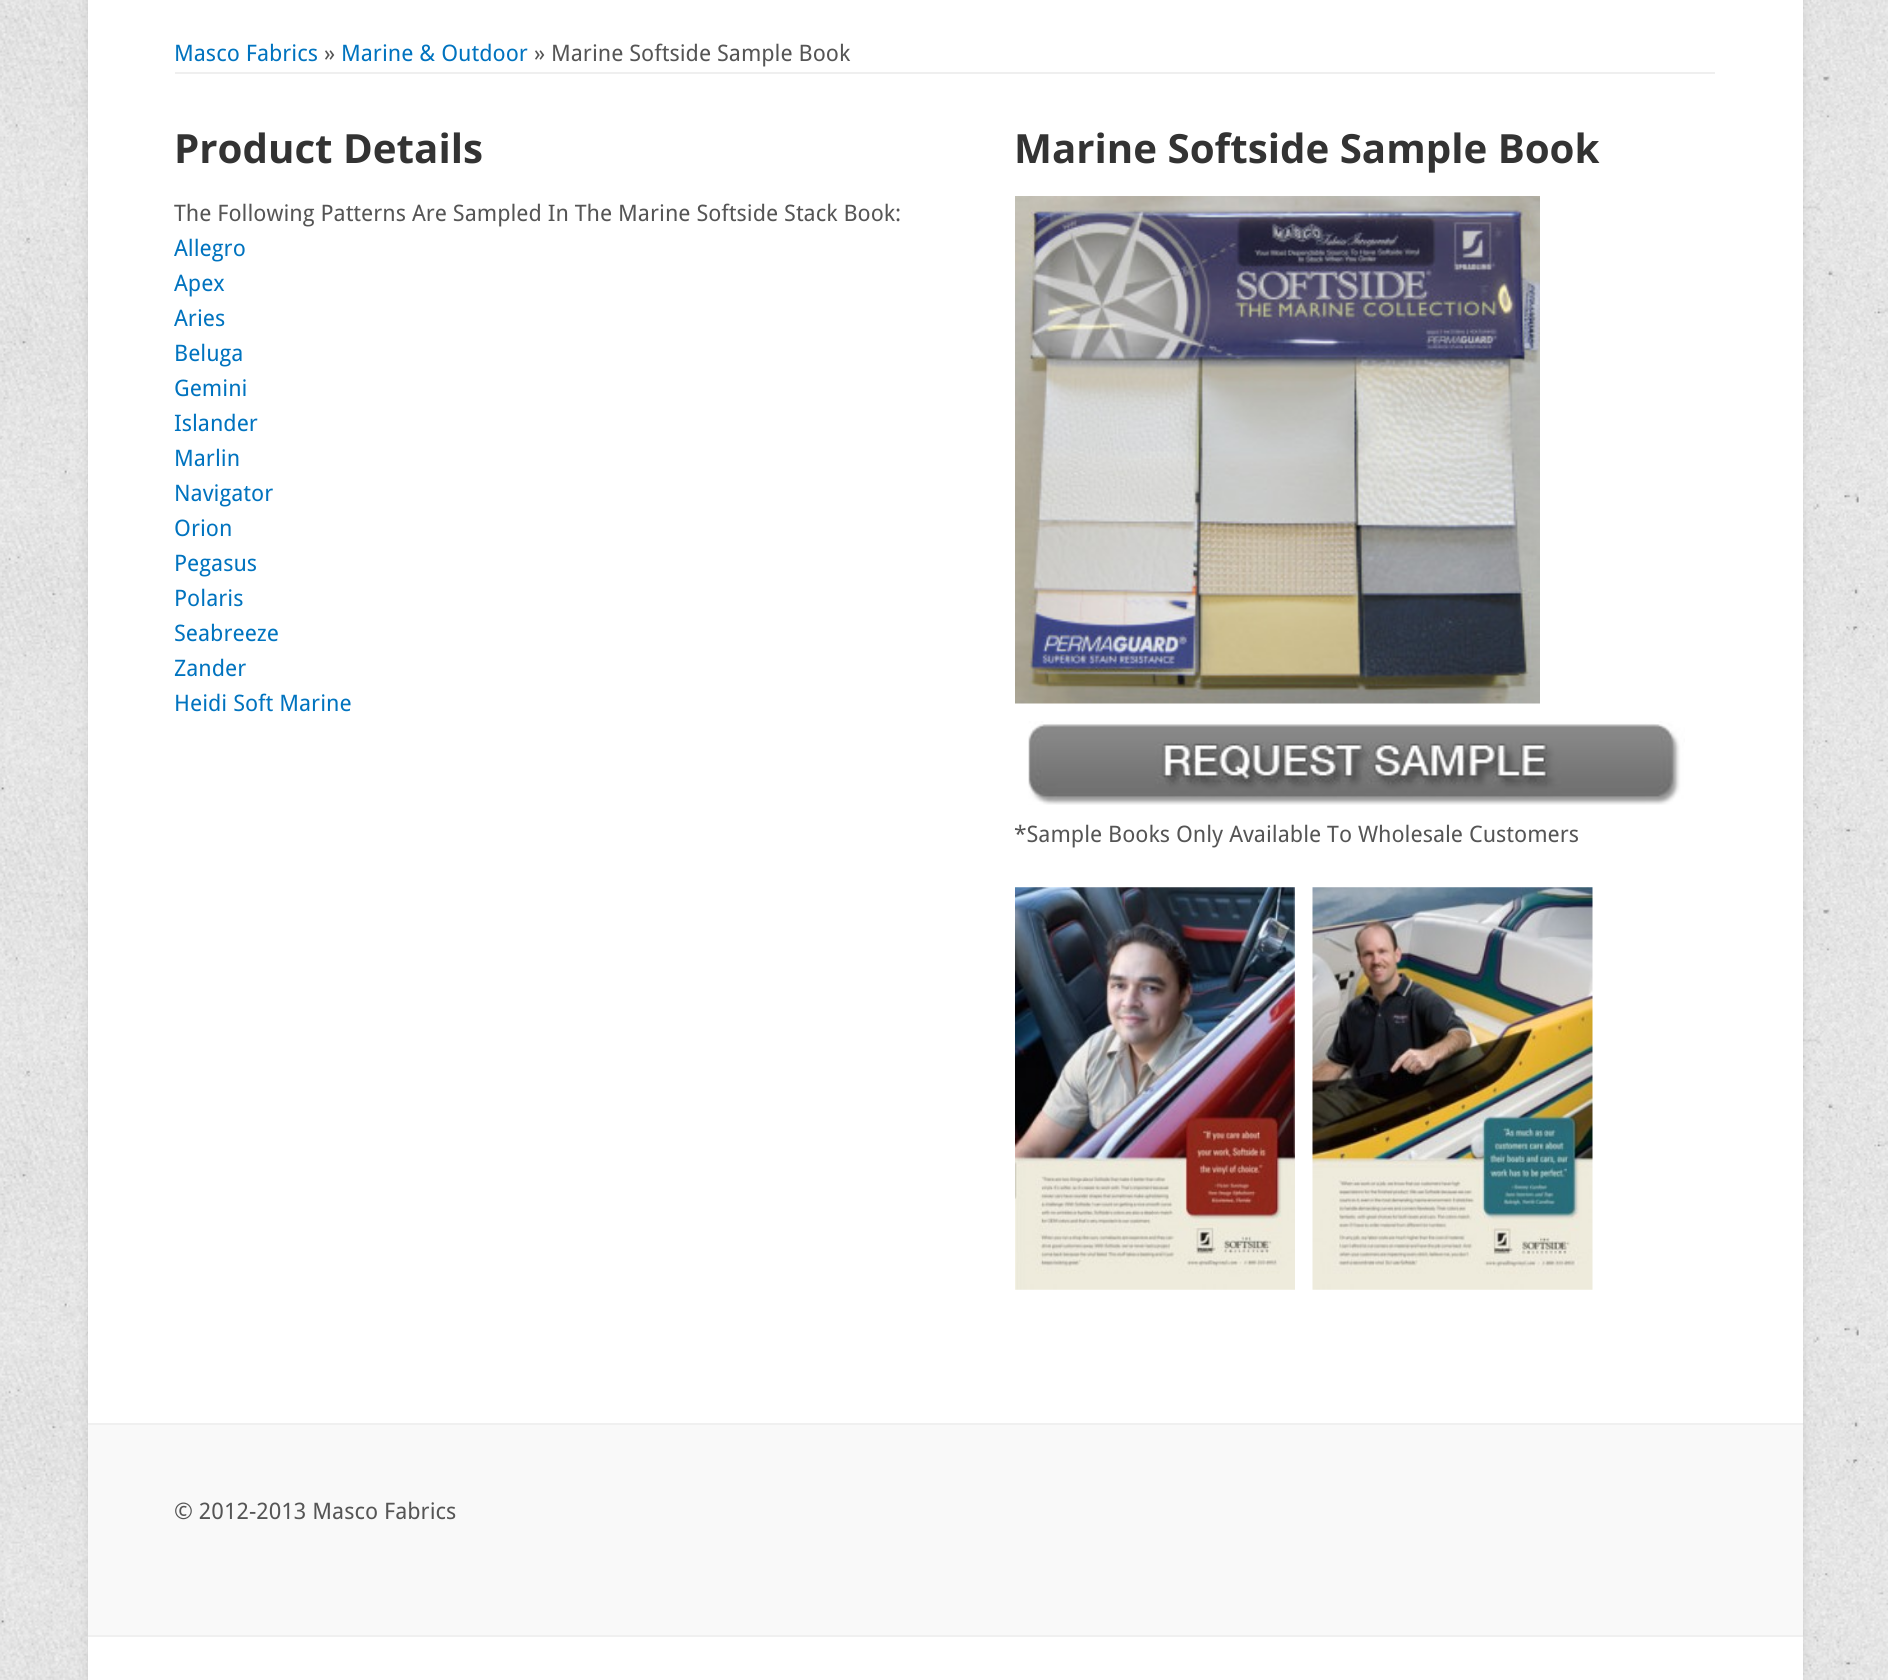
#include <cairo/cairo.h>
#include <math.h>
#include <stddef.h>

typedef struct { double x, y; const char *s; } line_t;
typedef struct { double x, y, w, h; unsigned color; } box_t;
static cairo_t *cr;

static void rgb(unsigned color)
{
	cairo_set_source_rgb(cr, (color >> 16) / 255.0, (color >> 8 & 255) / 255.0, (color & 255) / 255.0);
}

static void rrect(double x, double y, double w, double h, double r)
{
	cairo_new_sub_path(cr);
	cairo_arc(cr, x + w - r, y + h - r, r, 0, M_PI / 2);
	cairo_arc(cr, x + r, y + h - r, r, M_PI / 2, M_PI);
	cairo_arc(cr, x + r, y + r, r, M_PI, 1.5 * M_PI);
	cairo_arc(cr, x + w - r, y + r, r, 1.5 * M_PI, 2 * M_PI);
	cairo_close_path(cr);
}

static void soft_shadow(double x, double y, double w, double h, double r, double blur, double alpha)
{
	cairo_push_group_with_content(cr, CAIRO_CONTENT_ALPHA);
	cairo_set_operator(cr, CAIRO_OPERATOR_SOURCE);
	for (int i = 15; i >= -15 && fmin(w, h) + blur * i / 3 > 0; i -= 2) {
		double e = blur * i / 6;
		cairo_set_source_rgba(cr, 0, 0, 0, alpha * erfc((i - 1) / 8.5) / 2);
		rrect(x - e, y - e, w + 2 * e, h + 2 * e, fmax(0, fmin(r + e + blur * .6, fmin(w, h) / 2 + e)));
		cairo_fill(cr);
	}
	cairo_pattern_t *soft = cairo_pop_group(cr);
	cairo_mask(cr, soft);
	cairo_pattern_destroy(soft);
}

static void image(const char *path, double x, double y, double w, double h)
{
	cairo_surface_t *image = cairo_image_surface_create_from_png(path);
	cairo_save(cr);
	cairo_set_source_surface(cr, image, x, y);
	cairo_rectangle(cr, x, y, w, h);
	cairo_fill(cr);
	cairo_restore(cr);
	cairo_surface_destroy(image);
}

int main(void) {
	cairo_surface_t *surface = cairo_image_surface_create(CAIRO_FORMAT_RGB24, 1888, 1680);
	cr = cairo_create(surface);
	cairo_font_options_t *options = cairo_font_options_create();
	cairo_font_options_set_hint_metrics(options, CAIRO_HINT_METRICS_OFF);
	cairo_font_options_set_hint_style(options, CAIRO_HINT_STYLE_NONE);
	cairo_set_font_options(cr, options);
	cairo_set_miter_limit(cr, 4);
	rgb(0xffffff);
	cairo_paint(cr);
	image("img/1.png", 0, 0, 1888, 1680);
	rgb(0x000000);
	soft_shadow(88, -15, 1715, 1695, 0, 5, 0.1);
	rgb(0xffffff);
	cairo_rectangle(cr, 88, 0, 1715, 1680);
	cairo_fill(cr);
	rgb(0xefefef);
	cairo_rectangle(cr, 175, 72, 1540, 2);
	cairo_fill(cr);
	image("img/2.png", 1015, 196, 525, 508);
	image("img/3.png", 1028, 721, 657, 84);
	image("img/4.png", 1015, 887, 280, 403);
	image("img/5.png", 1312, 887, 281, 403);
	{
		static const box_t items[] = {
			{88, 1425, 1715, 210, 0xf9f9f9},
			{88, 1423, 1715, 2, 0xf0f0f0},
			{88, 1635, 1715, 2, 0xf0f0f0},
		};
		for (size_t i = 0; i < sizeof items / sizeof *items; i++) {
			rgb(items[i].color);
			cairo_rectangle(cr, items[i].x, items[i].y, items[i].w, items[i].h);
			cairo_fill(cr);
		}
	}
	cairo_select_font_face(cr, "Droid Sans", CAIRO_FONT_SLANT_NORMAL, CAIRO_FONT_WEIGHT_NORMAL);
	cairo_set_font_size(cr, 22.75);
	rgb(0x0073bf);
	cairo_move_to(cr, 174, 61);
	cairo_show_text(cr, "Masco Fabrics");
	rgb(0x555555);
	cairo_move_to(cr, 324, 61);
	cairo_show_text(cr, "»");
	rgb(0x0073bf);
	cairo_move_to(cr, 341, 61);
	cairo_show_text(cr, "Marine & Outdoor");
	rgb(0x555555);
	cairo_move_to(cr, 534, 61);
	cairo_show_text(cr, "» Marine Softside Sample Book");
	cairo_select_font_face(cr, "Open Sans", CAIRO_FONT_SLANT_NORMAL, CAIRO_FONT_WEIGHT_BOLD);
	cairo_set_font_size(cr, 40.25);
	rgb(0x333333);
	cairo_move_to(cr, 174, 163);
	cairo_show_text(cr, "Product Details");
	cairo_move_to(cr, 1014, 163);
	cairo_show_text(cr, "Marine Softside Sample Book");
	cairo_select_font_face(cr, "Droid Sans", CAIRO_FONT_SLANT_NORMAL, CAIRO_FONT_WEIGHT_NORMAL);
	cairo_set_font_size(cr, 22.75);
	rgb(0x555555);
	cairo_move_to(cr, 1014, 842);
	cairo_show_text(cr, "*Sample Books Only Available To Wholesale Customers");
	cairo_move_to(cr, 174, 221);
	cairo_show_text(cr, "The Following Patterns Are Sampled In The Marine Softside Stack Book:");
	rgb(0x0073bf);
	{
		static const line_t items[] = {
			{174, 256, "Allegro"},
			{174, 291, "Apex"},
			{174, 326, "Aries"},
			{174, 361, "Beluga"},
			{174, 396, "Gemini"},
			{174, 431, "Islander"},
			{174, 466, "Marlin"},
			{174, 501, "Navigator"},
			{174, 536, "Orion"},
			{174, 571, "Pegasus"},
			{174, 606, "Polaris"},
			{174, 641, "Seabreeze"},
			{174, 676, "Zander"},
			{174, 711, "Heidi Soft Marine"},
		};
		for (size_t i = 0; i < sizeof items / sizeof *items; i++) {
			cairo_move_to(cr, items[i].x, items[i].y);
			cairo_show_text(cr, items[i].s);
		}
	}
	rgb(0x555555);
	cairo_move_to(cr, 174, 1519);
	cairo_show_text(cr, "© 2012-2013 Masco Fabrics");
	cairo_surface_write_to_png(surface, "page.png");
	cairo_font_options_destroy(options);
	cairo_destroy(cr);
	cairo_surface_destroy(surface);
	return 0;
}
